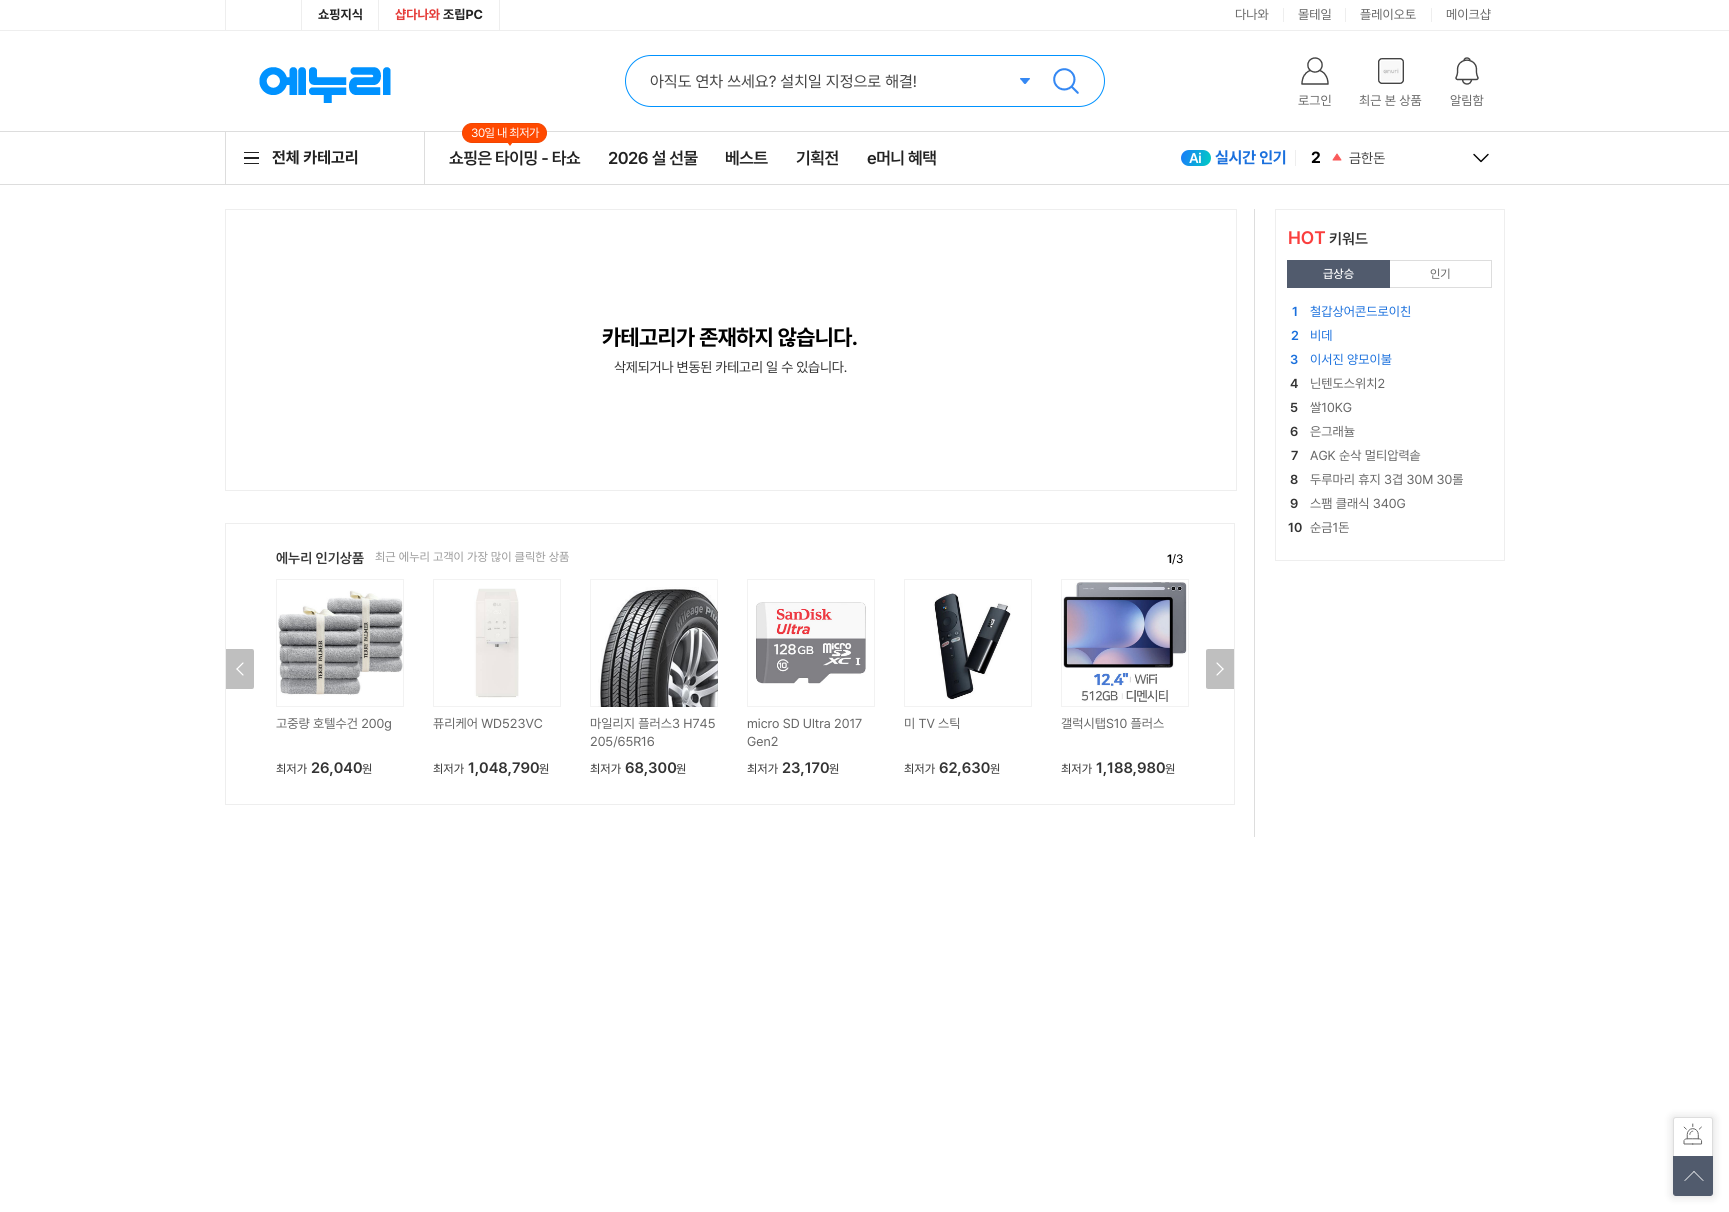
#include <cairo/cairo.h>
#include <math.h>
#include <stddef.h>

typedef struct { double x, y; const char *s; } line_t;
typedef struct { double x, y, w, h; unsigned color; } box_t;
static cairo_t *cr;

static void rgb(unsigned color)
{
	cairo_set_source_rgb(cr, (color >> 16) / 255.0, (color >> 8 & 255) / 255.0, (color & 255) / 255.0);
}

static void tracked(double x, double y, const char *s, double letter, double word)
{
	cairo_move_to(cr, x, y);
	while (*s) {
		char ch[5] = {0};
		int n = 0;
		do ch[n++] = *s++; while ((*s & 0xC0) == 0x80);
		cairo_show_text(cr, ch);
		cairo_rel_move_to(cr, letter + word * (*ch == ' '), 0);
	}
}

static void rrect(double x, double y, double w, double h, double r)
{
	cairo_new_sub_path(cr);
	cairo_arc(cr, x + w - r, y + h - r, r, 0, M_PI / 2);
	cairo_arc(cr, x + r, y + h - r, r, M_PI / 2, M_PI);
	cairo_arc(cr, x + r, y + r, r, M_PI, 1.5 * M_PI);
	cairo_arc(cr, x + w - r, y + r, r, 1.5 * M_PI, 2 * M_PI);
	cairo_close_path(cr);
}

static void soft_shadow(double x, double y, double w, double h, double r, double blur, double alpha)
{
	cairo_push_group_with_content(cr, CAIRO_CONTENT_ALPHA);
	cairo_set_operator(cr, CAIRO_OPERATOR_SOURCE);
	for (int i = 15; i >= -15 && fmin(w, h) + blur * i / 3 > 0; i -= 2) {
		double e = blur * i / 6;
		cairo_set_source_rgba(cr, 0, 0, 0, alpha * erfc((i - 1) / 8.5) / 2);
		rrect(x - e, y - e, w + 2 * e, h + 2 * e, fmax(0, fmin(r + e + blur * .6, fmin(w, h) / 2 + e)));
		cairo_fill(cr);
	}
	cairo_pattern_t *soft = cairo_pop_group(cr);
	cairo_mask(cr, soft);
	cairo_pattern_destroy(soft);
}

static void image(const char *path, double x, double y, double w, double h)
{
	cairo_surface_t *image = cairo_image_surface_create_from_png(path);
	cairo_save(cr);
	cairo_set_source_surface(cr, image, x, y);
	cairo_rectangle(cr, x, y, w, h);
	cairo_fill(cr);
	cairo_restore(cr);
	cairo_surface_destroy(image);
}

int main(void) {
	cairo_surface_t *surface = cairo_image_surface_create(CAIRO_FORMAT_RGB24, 1729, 1212);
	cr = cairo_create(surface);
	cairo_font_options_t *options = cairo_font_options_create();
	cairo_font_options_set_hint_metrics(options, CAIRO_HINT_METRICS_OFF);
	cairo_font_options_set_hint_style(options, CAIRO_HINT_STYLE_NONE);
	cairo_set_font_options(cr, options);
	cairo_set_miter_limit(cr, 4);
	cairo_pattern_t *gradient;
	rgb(0xffffff);
	cairo_paint(cr);
	{
		static const box_t items[] = {
			{0, 184, 1729, 1, 0xdddddd},
			{0, 30, 1729, 1, 0xeeeeee},
			{225, 0, 1, 30, 0xeeeeee},
			{301, 0, 1, 30, 0xeeeeee},
			{378, 0, 1, 30, 0xeeeeee},
			{499, 0, 1, 30, 0xeeeeee},
			{1283, 8, 1, 14, 0xeeeeee},
			{1345, 8, 1, 14, 0xeeeeee},
			{1431, 8, 1, 14, 0xeeeeee},
		};
		for (size_t i = 0; i < sizeof items / sizeof *items; i++) {
			rgb(items[i].color);
			cairo_rectangle(cr, items[i].x, items[i].y, items[i].w, items[i].h);
			cairo_fill(cr);
		}
	}
	image("img/1.png", 259, 67, 132, 40);
	rrect(625.5, 55.5, 479, 51, 25.5);
	rgb(0x0092ff);
	cairo_set_line_width(cr, 1);
	cairo_stroke(cr);
	image("img/2.png", 1020, 78, 10, 6);
	image("img/3.png", 1053, 68, 26, 26);
	image("img/4.png", 1301, 57, 28, 28);
	image("img/5.png", 1378, 58, 26, 26);
	image("img/6.png", 1381, 61, 20, 20);
	image("img/7.png", 1455, 57, 24, 28);
	{
		static const box_t items[] = {
			{424, 132, 1, 52, 0xdddddd},
			{225, 132, 1, 52, 0xdddddd},
			{244, 152, 15, 1, 0x222222},
			{244, 157, 15, 2, 0x222222},
			{244, 163, 15, 1, 0x222222},
			{0, 131, 1729, 1, 0xdddddd},
		};
		for (size_t i = 0; i < sizeof items / sizeof *items; i++) {
			rgb(items[i].color);
			cairo_rectangle(cr, items[i].x, items[i].y, items[i].w, items[i].h);
			cairo_fill(cr);
		}
	}
	rgb(0xff4900);
	rrect(462.5, 123.5, 84, 19, 9.5);
	cairo_fill_preserve(cr);
	rgb(0xf34500);
	cairo_stroke(cr);
	rgb(0xff4900);
	cairo_new_path(cr);
	cairo_move_to(cr, 507, 142);
	cairo_line_to(cr, 513, 142);
	cairo_line_to(cr, 510, 146);
	cairo_close_path(cr);
	cairo_fill(cr);
	gradient = cairo_pattern_create_linear(1180, 154, 1212, 162);
	cairo_pattern_add_color_stop_rgba(gradient, 0, 0.102, 0.482, 0.984, 1);
	cairo_pattern_add_color_stop_rgba(gradient, 1, 0, 0.804, 0.765, 1);
	cairo_set_source(cr, gradient);
	cairo_pattern_destroy(gradient);
	rrect(1181, 150, 30, 16, 8);
	cairo_fill(cr);
	rgb(0xeeeeee);
	cairo_rectangle(cr, 1295, 150, 1, 16);
	cairo_fill(cr);
	image("img/8.png", 1332, 153, 10, 8);
	cairo_new_path(cr);
	cairo_move_to(cr, 1488, 154.5);
	cairo_line_to(cr, 1481, 161.5);
	cairo_line_to(cr, 1474, 154.5);
	rgb(0x000000);
	cairo_set_line_width(cr, 1.4);
	cairo_set_line_cap(cr, CAIRO_LINE_CAP_ROUND);
	cairo_set_line_join(cr, CAIRO_LINE_JOIN_ROUND);
	cairo_stroke(cr);
	cairo_rectangle(cr, 225.5, 209.5, 1011, 281);
	rgb(0xeeeeee);
	cairo_set_line_width(cr, 1);
	cairo_set_line_cap(cr, CAIRO_LINE_CAP_BUTT);
	cairo_set_line_join(cr, CAIRO_LINE_JOIN_MITER);
	cairo_stroke(cr);
	cairo_rectangle(cr, 225.5, 523.5, 1009, 281);
	cairo_stroke(cr);
	image("img/9.png", 226, 649, 28, 40);
	image("img/10.png", 1206, 649, 28, 40);
	image("img/11.png", 278, 590, 125, 106);
	cairo_rectangle(cr, 276.5, 579.5, 127, 127);
	rgb(0xf2f2f2);
	cairo_stroke(cr);
	image("img/12.png", 462, 588, 69, 110);
	cairo_rectangle(cr, 433.5, 579.5, 127, 127);
	cairo_stroke(cr);
	image("img/13.png", 598, 587, 120, 120);
	cairo_rectangle(cr, 590.5, 579.5, 127, 127);
	cairo_set_source_rgba(cr, 0, 0, 0, 0.05);
	cairo_stroke(cr);
	image("img/14.png", 756, 602, 110, 82);
	cairo_rectangle(cr, 747.5, 579.5, 127, 127);
	rgb(0xf2f2f2);
	cairo_stroke(cr);
	image("img/15.png", 933, 593, 78, 107);
	cairo_rectangle(cr, 904.5, 579.5, 127, 127);
	cairo_stroke(cr);
	image("img/16.png", 1063, 582, 124, 120);
	cairo_rectangle(cr, 1061.5, 579.5, 127, 127);
	cairo_stroke(cr);
	rgb(0xdddddd);
	cairo_rectangle(cr, 1254, 209, 1, 628);
	cairo_fill(cr);
	cairo_rectangle(cr, 1275.5, 209.5, 229, 351);
	rgb(0xeeeeee);
	cairo_stroke(cr);
	rgb(0x515b6d);
	cairo_rectangle(cr, 1288, 261, 101, 26);
	cairo_fill(cr);
	cairo_rectangle(cr, 1389.5, 260.5, 102, 27);
	rgb(0xdddddd);
	cairo_stroke(cr);
	cairo_rectangle(cr, 1287.5, 260.5, 102, 27);
	rgb(0x515b6d);
	cairo_stroke(cr);
	rgb(0x000000);
	soft_shadow(1673, 1118, 40, 78, 0, 5, 0.15);
	rgb(0xffffff);
	cairo_new_path(cr);
	cairo_move_to(cr, 1676, 1117.5);
	cairo_line_to(cr, 1710, 1117.5);
	cairo_curve_to(cr, 1711.5, 1117.5, 1712.5, 1118.5, 1712.5, 1120);
	cairo_line_to(cr, 1712.5, 1156.5);
	cairo_line_to(cr, 1673.5, 1156.5);
	cairo_line_to(cr, 1673.5, 1120);
	cairo_curve_to(cr, 1673.5, 1118.5, 1674.5, 1117.5, 1676, 1117.5);
	cairo_close_path(cr);
	cairo_fill_preserve(cr);
	rgb(0xdddddd);
	cairo_stroke(cr);
	image("img/17.png", 1683, 1123, 20, 22);
	rgb(0x515b6d);
	cairo_new_path(cr);
	cairo_move_to(cr, 1673.5, 1156.5);
	cairo_line_to(cr, 1712.5, 1156.5);
	cairo_line_to(cr, 1712.5, 1193);
	cairo_curve_to(cr, 1712.5, 1194.5, 1711.5, 1195.5, 1710, 1195.5);
	cairo_line_to(cr, 1676, 1195.5);
	cairo_curve_to(cr, 1674.5, 1195.5, 1673.5, 1194.5, 1673.5, 1193);
	cairo_close_path(cr);
	cairo_fill_preserve(cr);
	cairo_stroke(cr);
	image("img/18.png", 1684, 1171, 20, 10);
	cairo_select_font_face(cr, "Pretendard", CAIRO_FONT_SLANT_NORMAL, CAIRO_FONT_WEIGHT_BOLD);
	cairo_set_font_size(cr, 13);
	rgb(0x222222);
	cairo_move_to(cr, 318, 19);
	cairo_show_text(cr, "쇼핑지식");
	rgb(0xe53b38);
	cairo_move_to(cr, 395, 19);
	cairo_show_text(cr, "샵다나와");
	rgb(0x222222);
	cairo_move_to(cr, 443, 19);
	cairo_show_text(cr, "조립PC");
	cairo_select_font_face(cr, "Pretendard", CAIRO_FONT_SLANT_NORMAL, CAIRO_FONT_WEIGHT_NORMAL);
	rgb(0x666666);
	{
		static const line_t items[] = {
			{1235, 19, "다나와"},
			{1298, 19, "몰테일"},
			{1360, 19, "플레이오토"},
			{1446, 19, "메이크샵"},
		};
		for (size_t i = 0; i < sizeof items / sizeof *items; i++) {
			cairo_move_to(cr, items[i].x, items[i].y);
			cairo_show_text(cr, items[i].s);
		}
	}
	cairo_set_font_size(cr, 16);
	rgb(0x444444);
	cairo_move_to(cr, 650, 87);
	cairo_show_text(cr, "아직도 연차 쓰세요? 설치일 지정으로 해결!");
	cairo_set_font_size(cr, 13);
	rgb(0x666666);
	{
		static const line_t items[] = {
			{1298, 105, "로그인"},
			{1359, 105, "최근 본 상품"},
			{1450, 105, "알림함"},
		};
		for (size_t i = 0; i < sizeof items / sizeof *items; i++) {
			cairo_move_to(cr, items[i].x, items[i].y);
			cairo_show_text(cr, items[i].s);
		}
	}
	cairo_select_font_face(cr, "Pretendard", CAIRO_FONT_SLANT_NORMAL, CAIRO_FONT_WEIGHT_BOLD);
	cairo_set_font_size(cr, 16);
	rgb(0x222222);
	cairo_move_to(cr, 272, 163);
	cairo_show_text(cr, "전체 카테고리");
	cairo_select_font_face(cr, "Pretendard", CAIRO_FONT_SLANT_NORMAL, CAIRO_FONT_WEIGHT_NORMAL);
	cairo_set_font_size(cr, 12);
	rgb(0xffffff);
	tracked(471, 137, "30일 내 최저가", -0.5, 0);
	cairo_select_font_face(cr, "Pretendard SemiBold", CAIRO_FONT_SLANT_NORMAL, CAIRO_FONT_WEIGHT_NORMAL);
	cairo_set_font_size(cr, 17);
	rgb(0x222222);
	{
		static const line_t items[] = {
			{449, 164, "쇼핑은 타이밍 - 타쇼"},
			{608, 164, "2026 설 선물"},
			{725, 164, "베스트"},
			{796, 164, "기획전"},
			{867, 164, "e머니 혜택"},
		};
		for (size_t i = 0; i < sizeof items / sizeof *items; i++) {
			tracked(items[i].x, items[i].y, items[i].s, -0.5, 0);
		}
	}
	cairo_set_font_size(cr, 14);
	rgb(0xffffff);
	tracked(1189, 163, "Ai", -0.5, 0);
	cairo_select_font_face(cr, "Pretendard", CAIRO_FONT_SLANT_NORMAL, CAIRO_FONT_WEIGHT_BOLD);
	cairo_set_font_size(cr, 16);
	rgb(0x1a70dd);
	tracked(1215, 163, "실시간 인기", -0.25, 0);
	rgb(0x000000);
	cairo_move_to(cr, 1311, 163);
	cairo_show_text(cr, "2");
	cairo_select_font_face(cr, "Pretendard", CAIRO_FONT_SLANT_NORMAL, CAIRO_FONT_WEIGHT_NORMAL);
	cairo_set_font_size(cr, 14);
	rgb(0x444444);
	cairo_move_to(cr, 1349, 163);
	cairo_show_text(cr, "금한돈");
	cairo_select_font_face(cr, "Pretendard", CAIRO_FONT_SLANT_NORMAL, CAIRO_FONT_WEIGHT_BOLD);
	cairo_set_font_size(cr, 22);
	rgb(0x000000);
	tracked(602, 345, "카테고리가 존재하지 않습니다.", -0.5, 0);
	cairo_select_font_face(cr, "Pretendard", CAIRO_FONT_SLANT_NORMAL, CAIRO_FONT_WEIGHT_NORMAL);
	cairo_set_font_size(cr, 14);
	rgb(0x333333);
	tracked(614, 372, "삭제되거나 변동된 카테고리 일 수 있습니다.", -0.25, 0);
	cairo_select_font_face(cr, "Pretendard SemiBold", CAIRO_FONT_SLANT_NORMAL, CAIRO_FONT_WEIGHT_NORMAL);
	cairo_move_to(cr, 276, 563);
	cairo_show_text(cr, "에누리 인기상품");
	cairo_select_font_face(cr, "Pretendard", CAIRO_FONT_SLANT_NORMAL, CAIRO_FONT_WEIGHT_NORMAL);
	cairo_set_font_size(cr, 12);
	rgb(0x999999);
	cairo_move_to(cr, 375, 561);
	cairo_show_text(cr, "최근 에누리 고객이 가장 많이 클릭한 상품");
	cairo_select_font_face(cr, "Pretendard SemiBold", CAIRO_FONT_SLANT_NORMAL, CAIRO_FONT_WEIGHT_NORMAL);
	rgb(0x000000);
	cairo_move_to(cr, 1167, 563);
	cairo_show_text(cr, "1");
	cairo_select_font_face(cr, "Pretendard", CAIRO_FONT_SLANT_NORMAL, CAIRO_FONT_WEIGHT_NORMAL);
	cairo_move_to(cr, 1172, 563);
	cairo_show_text(cr, "/3");
	cairo_set_font_size(cr, 13);
	rgb(0x666666);
	cairo_move_to(cr, 276, 728);
	cairo_show_text(cr, "고중량 호텔수건 200g");
	cairo_set_font_size(cr, 12);
	rgb(0x333333);
	cairo_move_to(cr, 276, 773);
	cairo_show_text(cr, "최저가");
	cairo_select_font_face(cr, "Pretendard SemiBold", CAIRO_FONT_SLANT_NORMAL, CAIRO_FONT_WEIGHT_NORMAL);
	cairo_set_font_size(cr, 15);
	cairo_move_to(cr, 311, 773);
	cairo_show_text(cr, "26,040");
	cairo_select_font_face(cr, "Pretendard", CAIRO_FONT_SLANT_NORMAL, CAIRO_FONT_WEIGHT_NORMAL);
	cairo_set_font_size(cr, 12);
	cairo_move_to(cr, 362, 773);
	cairo_show_text(cr, "원");
	cairo_set_font_size(cr, 13);
	rgb(0x666666);
	cairo_move_to(cr, 433, 728);
	cairo_show_text(cr, "퓨리케어 WD523VC");
	cairo_set_font_size(cr, 12);
	rgb(0x333333);
	cairo_move_to(cr, 433, 773);
	cairo_show_text(cr, "최저가");
	cairo_select_font_face(cr, "Pretendard SemiBold", CAIRO_FONT_SLANT_NORMAL, CAIRO_FONT_WEIGHT_NORMAL);
	cairo_set_font_size(cr, 15);
	cairo_move_to(cr, 468, 773);
	cairo_show_text(cr, "1,048,790");
	cairo_select_font_face(cr, "Pretendard", CAIRO_FONT_SLANT_NORMAL, CAIRO_FONT_WEIGHT_NORMAL);
	cairo_set_font_size(cr, 12);
	cairo_move_to(cr, 539, 773);
	cairo_show_text(cr, "원");
	cairo_set_font_size(cr, 13);
	rgb(0x666666);
	cairo_move_to(cr, 590, 728);
	cairo_show_text(cr, "마일리지 플러스3 H745");
	cairo_move_to(cr, 590, 746);
	cairo_show_text(cr, "205/65R16");
	cairo_set_font_size(cr, 12);
	rgb(0x333333);
	cairo_move_to(cr, 590, 773);
	cairo_show_text(cr, "최저가");
	cairo_select_font_face(cr, "Pretendard SemiBold", CAIRO_FONT_SLANT_NORMAL, CAIRO_FONT_WEIGHT_NORMAL);
	cairo_set_font_size(cr, 15);
	cairo_move_to(cr, 625, 773);
	cairo_show_text(cr, "68,300");
	cairo_select_font_face(cr, "Pretendard", CAIRO_FONT_SLANT_NORMAL, CAIRO_FONT_WEIGHT_NORMAL);
	cairo_set_font_size(cr, 12);
	cairo_move_to(cr, 676, 773);
	cairo_show_text(cr, "원");
	cairo_set_font_size(cr, 13);
	rgb(0x666666);
	cairo_move_to(cr, 747, 728);
	cairo_show_text(cr, "micro SD Ultra 2017");
	cairo_move_to(cr, 747, 746);
	cairo_show_text(cr, "Gen2");
	cairo_set_font_size(cr, 12);
	rgb(0x333333);
	cairo_move_to(cr, 747, 773);
	cairo_show_text(cr, "최저가");
	cairo_select_font_face(cr, "Pretendard SemiBold", CAIRO_FONT_SLANT_NORMAL, CAIRO_FONT_WEIGHT_NORMAL);
	cairo_set_font_size(cr, 15);
	cairo_move_to(cr, 782, 773);
	cairo_show_text(cr, "23,170");
	cairo_select_font_face(cr, "Pretendard", CAIRO_FONT_SLANT_NORMAL, CAIRO_FONT_WEIGHT_NORMAL);
	cairo_set_font_size(cr, 12);
	cairo_move_to(cr, 829, 773);
	cairo_show_text(cr, "원");
	cairo_set_font_size(cr, 13);
	rgb(0x666666);
	cairo_move_to(cr, 904, 728);
	cairo_show_text(cr, "미 TV 스틱");
	cairo_set_font_size(cr, 12);
	rgb(0x333333);
	cairo_move_to(cr, 904, 773);
	cairo_show_text(cr, "최저가");
	cairo_select_font_face(cr, "Pretendard SemiBold", CAIRO_FONT_SLANT_NORMAL, CAIRO_FONT_WEIGHT_NORMAL);
	cairo_set_font_size(cr, 15);
	cairo_move_to(cr, 939, 773);
	cairo_show_text(cr, "62,630");
	cairo_select_font_face(cr, "Pretendard", CAIRO_FONT_SLANT_NORMAL, CAIRO_FONT_WEIGHT_NORMAL);
	cairo_set_font_size(cr, 12);
	cairo_move_to(cr, 990, 773);
	cairo_show_text(cr, "원");
	cairo_set_font_size(cr, 13);
	rgb(0x666666);
	cairo_move_to(cr, 1061, 728);
	cairo_show_text(cr, "갤럭시탭S10 플러스");
	cairo_set_font_size(cr, 12);
	rgb(0x333333);
	cairo_move_to(cr, 1061, 773);
	cairo_show_text(cr, "최저가");
	cairo_select_font_face(cr, "Pretendard SemiBold", CAIRO_FONT_SLANT_NORMAL, CAIRO_FONT_WEIGHT_NORMAL);
	cairo_set_font_size(cr, 15);
	cairo_move_to(cr, 1096, 773);
	cairo_show_text(cr, "1,188,980");
	cairo_select_font_face(cr, "Pretendard", CAIRO_FONT_SLANT_NORMAL, CAIRO_FONT_WEIGHT_NORMAL);
	cairo_set_font_size(cr, 12);
	cairo_move_to(cr, 1165, 773);
	cairo_show_text(cr, "원");
	cairo_select_font_face(cr, "Pretendard SemiBold", CAIRO_FONT_SLANT_NORMAL, CAIRO_FONT_WEIGHT_NORMAL);
	cairo_set_font_size(cr, 18);
	rgb(0xfa3e3d);
	cairo_move_to(cr, 1288, 244);
	cairo_show_text(cr, "HOT");
	cairo_set_font_size(cr, 15);
	rgb(0x333333);
	cairo_move_to(cr, 1329, 244);
	cairo_show_text(cr, "키워드");
	cairo_select_font_face(cr, "Pretendard Medium", CAIRO_FONT_SLANT_NORMAL, CAIRO_FONT_WEIGHT_NORMAL);
	cairo_set_font_size(cr, 12);
	rgb(0xffffff);
	cairo_move_to(cr, 1323, 278);
	cairo_show_text(cr, "급상승");
	cairo_select_font_face(cr, "Pretendard SemiBold", CAIRO_FONT_SLANT_NORMAL, CAIRO_FONT_WEIGHT_NORMAL);
	cairo_set_font_size(cr, 13);
	rgb(0x1a70dd);
	cairo_move_to(cr, 1292, 316);
	cairo_show_text(cr, "1");
	cairo_select_font_face(cr, "Pretendard", CAIRO_FONT_SLANT_NORMAL, CAIRO_FONT_WEIGHT_NORMAL);
	cairo_move_to(cr, 1310, 316);
	cairo_show_text(cr, "철갑상어콘드로이친");
	cairo_select_font_face(cr, "Pretendard SemiBold", CAIRO_FONT_SLANT_NORMAL, CAIRO_FONT_WEIGHT_NORMAL);
	cairo_move_to(cr, 1291, 340);
	cairo_show_text(cr, "2");
	cairo_select_font_face(cr, "Pretendard", CAIRO_FONT_SLANT_NORMAL, CAIRO_FONT_WEIGHT_NORMAL);
	cairo_move_to(cr, 1310, 340);
	cairo_show_text(cr, "비데");
	cairo_select_font_face(cr, "Pretendard SemiBold", CAIRO_FONT_SLANT_NORMAL, CAIRO_FONT_WEIGHT_NORMAL);
	cairo_move_to(cr, 1290, 364);
	cairo_show_text(cr, "3");
	cairo_select_font_face(cr, "Pretendard", CAIRO_FONT_SLANT_NORMAL, CAIRO_FONT_WEIGHT_NORMAL);
	cairo_move_to(cr, 1310, 364);
	cairo_show_text(cr, "이서진 양모이불");
	cairo_select_font_face(cr, "Pretendard SemiBold", CAIRO_FONT_SLANT_NORMAL, CAIRO_FONT_WEIGHT_NORMAL);
	rgb(0x333333);
	cairo_move_to(cr, 1290, 388);
	cairo_show_text(cr, "4");
	cairo_select_font_face(cr, "Pretendard", CAIRO_FONT_SLANT_NORMAL, CAIRO_FONT_WEIGHT_NORMAL);
	rgb(0x666666);
	cairo_move_to(cr, 1310, 388);
	cairo_show_text(cr, "닌텐도스위치2");
	cairo_select_font_face(cr, "Pretendard SemiBold", CAIRO_FONT_SLANT_NORMAL, CAIRO_FONT_WEIGHT_NORMAL);
	rgb(0x333333);
	cairo_move_to(cr, 1290, 412);
	cairo_show_text(cr, "5");
	cairo_select_font_face(cr, "Pretendard", CAIRO_FONT_SLANT_NORMAL, CAIRO_FONT_WEIGHT_NORMAL);
	rgb(0x666666);
	cairo_move_to(cr, 1310, 412);
	cairo_show_text(cr, "쌀10KG");
	cairo_select_font_face(cr, "Pretendard SemiBold", CAIRO_FONT_SLANT_NORMAL, CAIRO_FONT_WEIGHT_NORMAL);
	rgb(0x333333);
	cairo_move_to(cr, 1290, 436);
	cairo_show_text(cr, "6");
	cairo_select_font_face(cr, "Pretendard", CAIRO_FONT_SLANT_NORMAL, CAIRO_FONT_WEIGHT_NORMAL);
	rgb(0x666666);
	cairo_move_to(cr, 1310, 436);
	cairo_show_text(cr, "은그래뉼");
	cairo_select_font_face(cr, "Pretendard SemiBold", CAIRO_FONT_SLANT_NORMAL, CAIRO_FONT_WEIGHT_NORMAL);
	rgb(0x333333);
	cairo_move_to(cr, 1291, 460);
	cairo_show_text(cr, "7");
	cairo_select_font_face(cr, "Pretendard", CAIRO_FONT_SLANT_NORMAL, CAIRO_FONT_WEIGHT_NORMAL);
	rgb(0x666666);
	cairo_move_to(cr, 1310, 460);
	cairo_show_text(cr, "AGK 순삭 멀티압력솥");
	cairo_select_font_face(cr, "Pretendard SemiBold", CAIRO_FONT_SLANT_NORMAL, CAIRO_FONT_WEIGHT_NORMAL);
	rgb(0x333333);
	cairo_move_to(cr, 1290, 484);
	cairo_show_text(cr, "8");
	cairo_select_font_face(cr, "Pretendard", CAIRO_FONT_SLANT_NORMAL, CAIRO_FONT_WEIGHT_NORMAL);
	rgb(0x666666);
	cairo_move_to(cr, 1310, 484);
	cairo_show_text(cr, "두루마리 휴지 3겹 30M 30롤");
	cairo_select_font_face(cr, "Pretendard SemiBold", CAIRO_FONT_SLANT_NORMAL, CAIRO_FONT_WEIGHT_NORMAL);
	rgb(0x333333);
	cairo_move_to(cr, 1290, 508);
	cairo_show_text(cr, "9");
	cairo_select_font_face(cr, "Pretendard", CAIRO_FONT_SLANT_NORMAL, CAIRO_FONT_WEIGHT_NORMAL);
	rgb(0x666666);
	cairo_move_to(cr, 1310, 508);
	cairo_show_text(cr, "스팸 클래식 340G");
	cairo_select_font_face(cr, "Pretendard SemiBold", CAIRO_FONT_SLANT_NORMAL, CAIRO_FONT_WEIGHT_NORMAL);
	rgb(0x333333);
	cairo_move_to(cr, 1288, 532);
	cairo_show_text(cr, "10");
	cairo_select_font_face(cr, "Pretendard", CAIRO_FONT_SLANT_NORMAL, CAIRO_FONT_WEIGHT_NORMAL);
	rgb(0x666666);
	cairo_move_to(cr, 1310, 532);
	cairo_show_text(cr, "순금1돈");
	cairo_set_font_size(cr, 12);
	cairo_move_to(cr, 1430, 278);
	cairo_show_text(cr, "인기");
	cairo_surface_write_to_png(surface, "page.png");
	cairo_font_options_destroy(options);
	cairo_destroy(cr);
	cairo_surface_destroy(surface);
	return 0;
}
